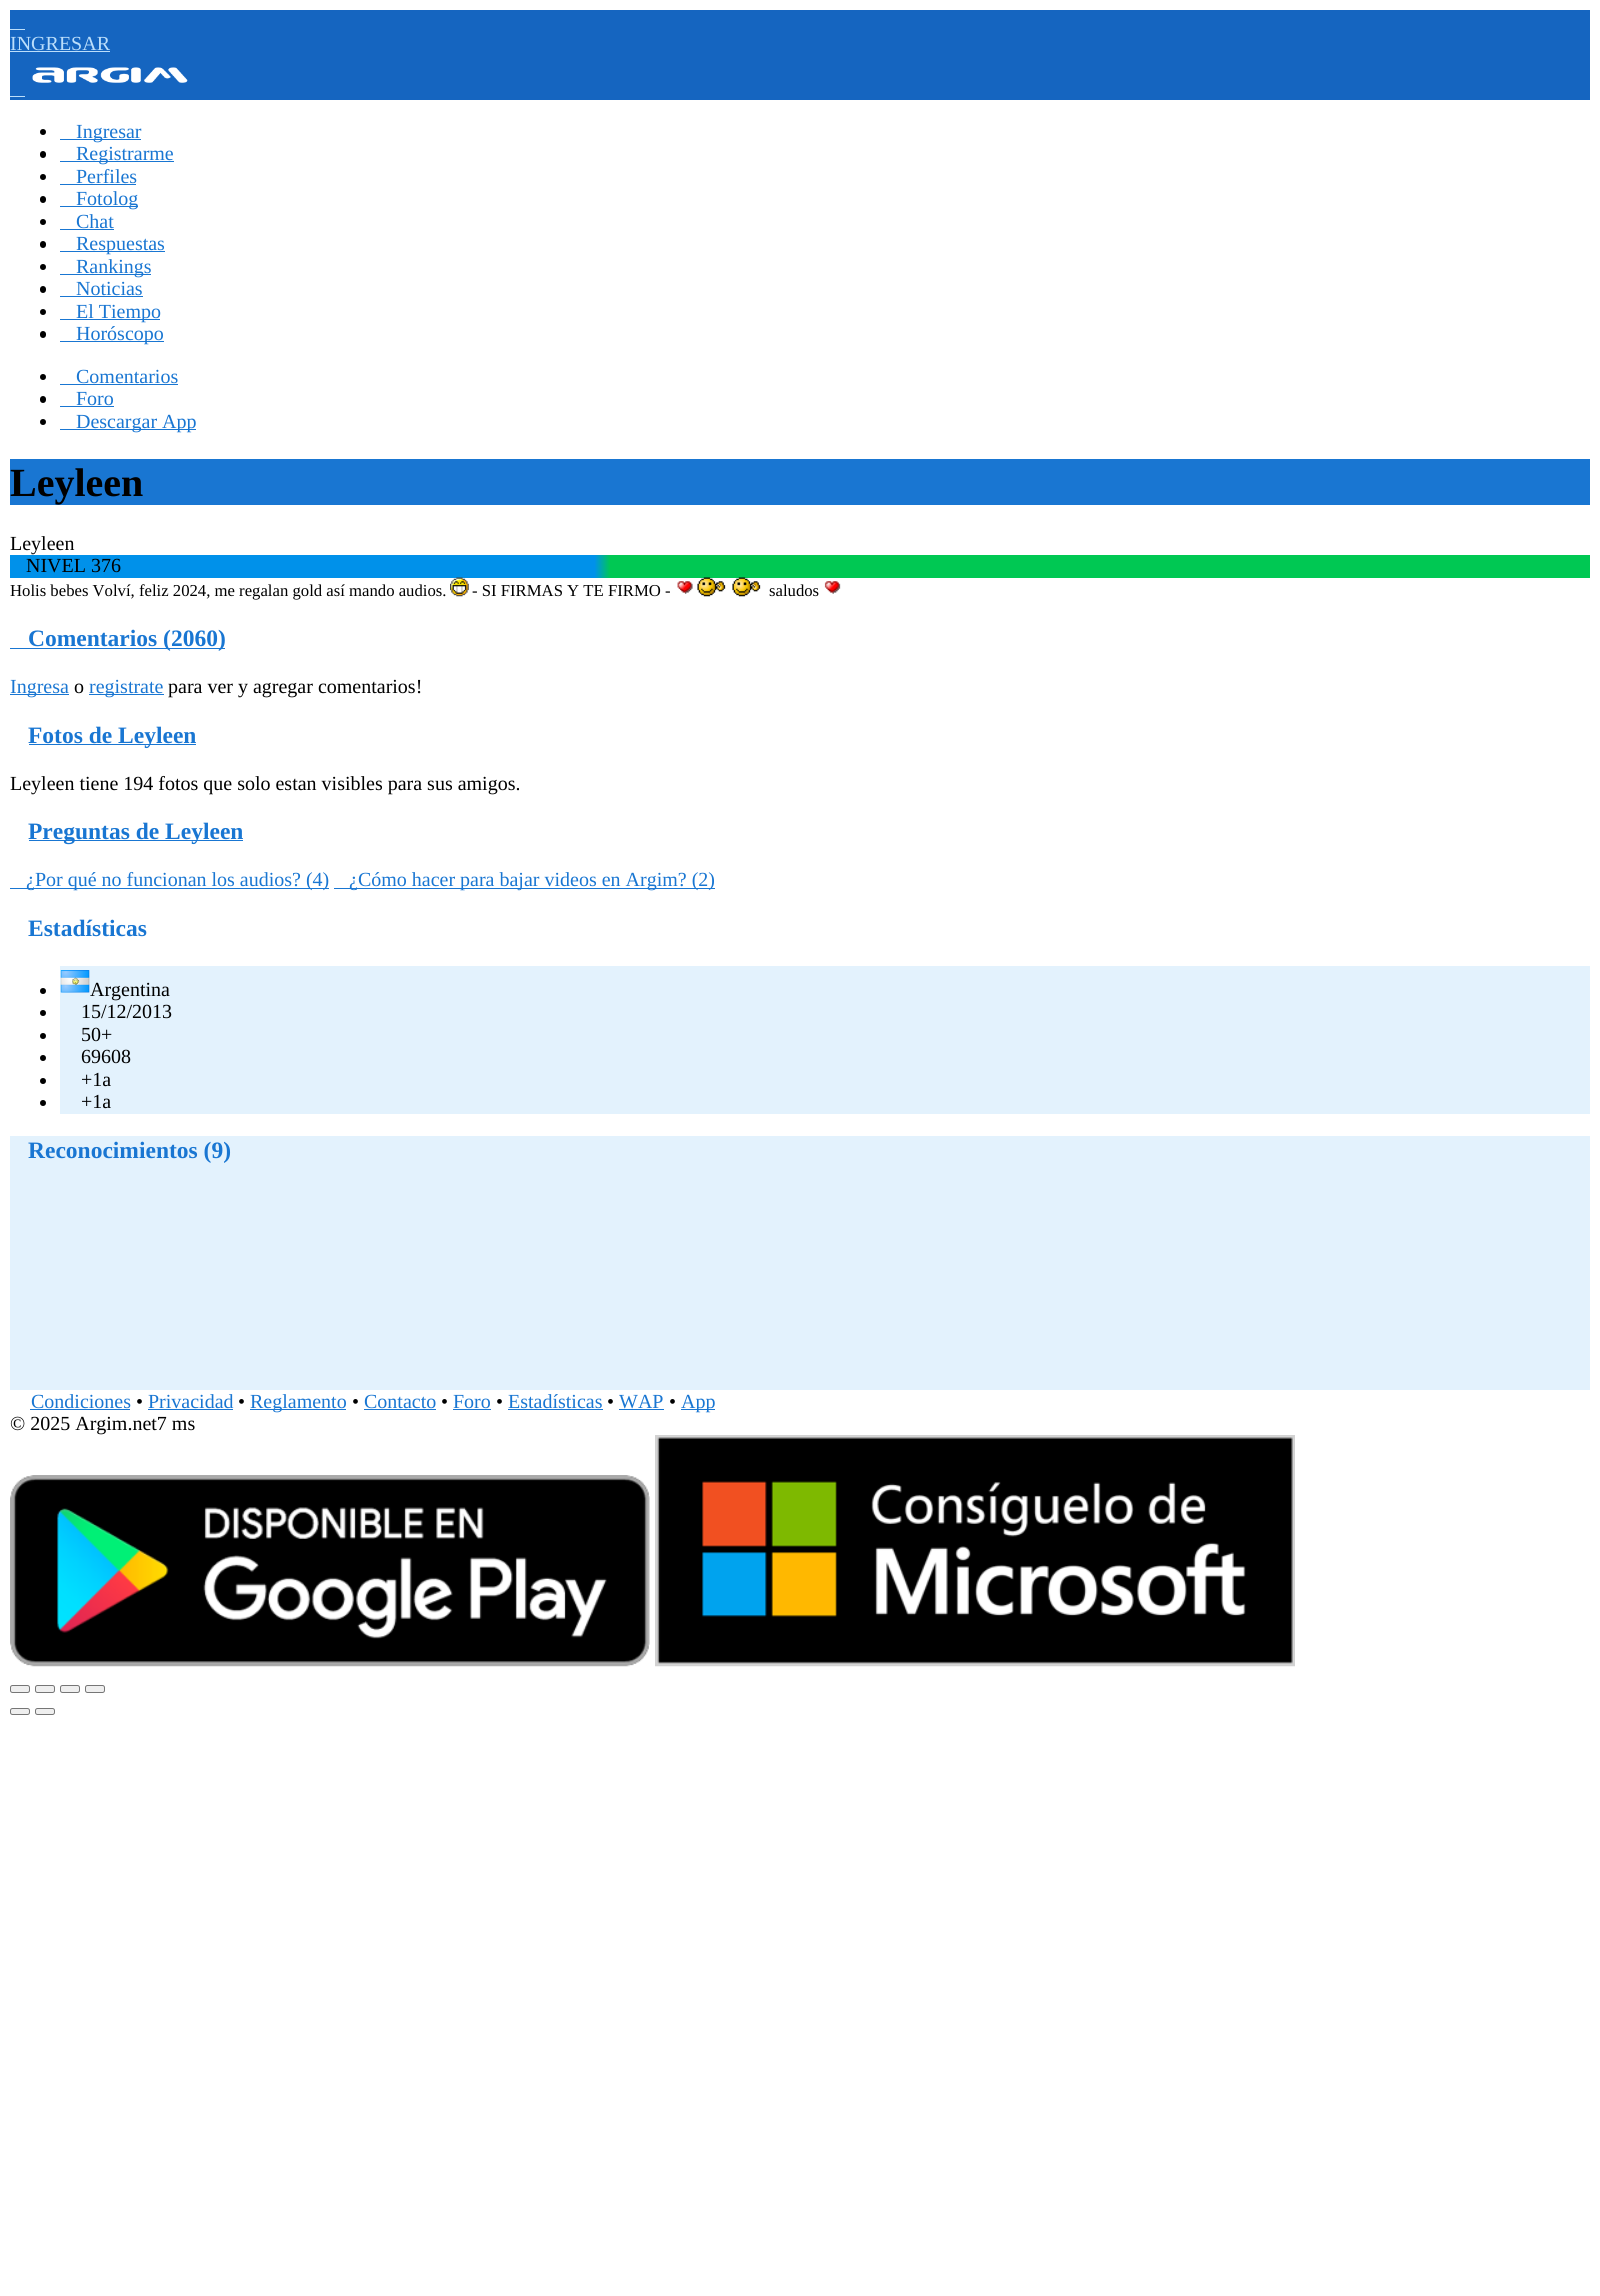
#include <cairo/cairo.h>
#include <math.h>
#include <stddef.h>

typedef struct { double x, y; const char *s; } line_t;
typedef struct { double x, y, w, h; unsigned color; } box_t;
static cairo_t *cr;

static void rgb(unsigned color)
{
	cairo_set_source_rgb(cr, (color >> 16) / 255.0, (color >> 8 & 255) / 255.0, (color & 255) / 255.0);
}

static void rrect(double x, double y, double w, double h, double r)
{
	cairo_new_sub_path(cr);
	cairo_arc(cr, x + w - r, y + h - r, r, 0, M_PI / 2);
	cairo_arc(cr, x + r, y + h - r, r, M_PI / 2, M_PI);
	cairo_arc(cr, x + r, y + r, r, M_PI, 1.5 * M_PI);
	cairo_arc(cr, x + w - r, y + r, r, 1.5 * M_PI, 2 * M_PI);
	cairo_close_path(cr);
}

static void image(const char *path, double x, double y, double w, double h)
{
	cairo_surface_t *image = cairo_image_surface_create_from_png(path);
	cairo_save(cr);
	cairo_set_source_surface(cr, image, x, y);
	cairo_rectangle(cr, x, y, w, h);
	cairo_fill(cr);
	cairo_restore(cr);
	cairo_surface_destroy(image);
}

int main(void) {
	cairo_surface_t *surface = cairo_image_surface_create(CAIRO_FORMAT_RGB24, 1600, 2296);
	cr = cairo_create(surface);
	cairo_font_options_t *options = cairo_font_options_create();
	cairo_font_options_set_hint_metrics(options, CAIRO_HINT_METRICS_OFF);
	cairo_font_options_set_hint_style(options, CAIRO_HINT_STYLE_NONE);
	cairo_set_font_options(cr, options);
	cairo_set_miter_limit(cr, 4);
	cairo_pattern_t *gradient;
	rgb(0xffffff);
	cairo_paint(cr);
	{
		static const box_t items[] = {
			{10, 10, 1580, 90, 0x1565c0},
			{10, 29, 15, 1, 0xbbdefb},
			{10, 51, 100, 1, 0xbbdefb},
		};
		for (size_t i = 0; i < sizeof items / sizeof *items; i++) {
			rgb(items[i].color);
			cairo_rectangle(cr, items[i].x, items[i].y, items[i].w, items[i].h);
			cairo_fill(cr);
		}
	}
	image("img/1.png", 32, 67, 156, 16);
	cairo_rectangle(cr, 10, 96, 15, 1);
	cairo_fill(cr);
	rgb(0x000000);
	cairo_arc(cr, 43, 132, 3, 0, 2 * M_PI);
	cairo_fill(cr);
	rgb(0x1976d2);
	cairo_rectangle(cr, 60, 139, 81, 1);
	cairo_fill(cr);
	rgb(0x000000);
	rrect(40, 151, 6, 7, 3);
	cairo_fill(cr);
	rgb(0x1976d2);
	cairo_rectangle(cr, 60, 161, 114, 1);
	cairo_fill(cr);
	rgb(0x000000);
	cairo_arc(cr, 43, 177, 3, 0, 2 * M_PI);
	cairo_fill(cr);
	rgb(0x1976d2);
	cairo_rectangle(cr, 60, 184, 76, 1);
	cairo_fill(cr);
	rgb(0x000000);
	rrect(40, 196, 6, 7, 3);
	cairo_fill(cr);
	rgb(0x1976d2);
	cairo_rectangle(cr, 60, 206, 78, 1);
	cairo_fill(cr);
	rgb(0x000000);
	cairo_arc(cr, 43, 222, 3, 0, 2 * M_PI);
	cairo_fill(cr);
	rgb(0x1976d2);
	cairo_rectangle(cr, 60, 229, 54, 1);
	cairo_fill(cr);
	rgb(0x000000);
	rrect(40, 241, 6, 7, 3);
	cairo_fill(cr);
	rgb(0x1976d2);
	cairo_rectangle(cr, 60, 251, 105, 1);
	cairo_fill(cr);
	rgb(0x000000);
	cairo_arc(cr, 43, 267, 3, 0, 2 * M_PI);
	cairo_fill(cr);
	rgb(0x1976d2);
	cairo_rectangle(cr, 60, 274, 91, 1);
	cairo_fill(cr);
	rgb(0x000000);
	rrect(40, 286, 6, 7, 3);
	cairo_fill(cr);
	rgb(0x1976d2);
	cairo_rectangle(cr, 60, 296, 83, 1);
	cairo_fill(cr);
	rgb(0x000000);
	cairo_arc(cr, 43, 312, 3, 0, 2 * M_PI);
	cairo_fill(cr);
	rgb(0x1976d2);
	cairo_rectangle(cr, 60, 319, 100, 1);
	cairo_fill(cr);
	rgb(0x000000);
	rrect(40, 331, 6, 7, 3);
	cairo_fill(cr);
	rgb(0x1976d2);
	cairo_rectangle(cr, 60, 341, 104, 1);
	cairo_fill(cr);
	rgb(0x000000);
	cairo_arc(cr, 43, 377, 3, 0, 2 * M_PI);
	cairo_fill(cr);
	rgb(0x1976d2);
	cairo_rectangle(cr, 60, 384, 118, 1);
	cairo_fill(cr);
	rgb(0x000000);
	rrect(40, 396, 6, 7, 3);
	cairo_fill(cr);
	rgb(0x1976d2);
	cairo_rectangle(cr, 60, 406, 54, 1);
	cairo_fill(cr);
	rgb(0x000000);
	cairo_arc(cr, 43, 422, 3, 0, 2 * M_PI);
	cairo_fill(cr);
	rgb(0x1976d2);
	cairo_rectangle(cr, 60, 429, 136, 1);
	cairo_fill(cr);
	cairo_rectangle(cr, 10, 459, 1580, 46);
	cairo_fill(cr);
	gradient = cairo_pattern_create_linear(10, 566, 1590, 566);
	cairo_pattern_add_color_stop_rgba(gradient, 0, 0, 0.569, 0.918, 1);
	cairo_pattern_add_color_stop_rgba(gradient, 0.37, 0, 0.569, 0.918, 1);
	cairo_pattern_add_color_stop_rgba(gradient, 0.38, 0, 0.784, 0.325, 1);
	cairo_pattern_add_color_stop_rgba(gradient, 1, 0, 0.784, 0.325, 1);
	cairo_set_source(cr, gradient);
	cairo_pattern_destroy(gradient);
	cairo_rectangle(cr, 10, 555, 1580, 23);
	cairo_fill(cr);
	image("img/2.png", 450, 577, 19, 20);
	image("img/3.png", 677, 581, 16, 13);
	image("img/4.png", 697, 577, 29, 20);
	image("img/4.png", 732, 577, 29, 20);
	image("img/5.png", 824, 581, 17, 13);
	{
		static const box_t items[] = {
			{10, 648, 215, 1, 0x1976d2},
			{10, 694, 59, 1, 0x1976d2},
			{89, 694, 75, 1, 0x1976d2},
			{29, 744, 167, 1, 0x1976d2},
			{29, 840, 214, 1, 0x1976d2},
			{10, 888, 319, 1, 0x1976d2},
			{334, 888, 381, 1, 0x1976d2},
			{60, 966, 1530, 148, 0xe3f2fd},
		};
		for (size_t i = 0; i < sizeof items / sizeof *items; i++) {
			rgb(items[i].color);
			cairo_rectangle(cr, items[i].x, items[i].y, items[i].w, items[i].h);
			cairo_fill(cr);
		}
	}
	rgb(0x000000);
	cairo_arc(cr, 43, 991, 3, 0, 2 * M_PI);
	cairo_fill(cr);
	image("img/6.png", 60, 970, 30, 23);
	cairo_arc(cr, 43, 1013, 3, 0, 2 * M_PI);
	cairo_fill(cr);
	cairo_arc(cr, 43, 1036, 3, 0, 2 * M_PI);
	cairo_fill(cr);
	cairo_arc(cr, 43, 1058, 3, 0, 2 * M_PI);
	cairo_fill(cr);
	cairo_arc(cr, 43, 1081, 3, 0, 2 * M_PI);
	cairo_fill(cr);
	cairo_arc(cr, 43, 1103, 3, 0, 2 * M_PI);
	cairo_fill(cr);
	{
		static const box_t items[] = {
			{10, 1136, 1580, 254, 0xe3f2fd},
			{30, 1409, 100, 1, 0x1976d2},
			{148, 1409, 85, 1, 0x1976d2},
			{250, 1409, 96, 1, 0x1976d2},
			{364, 1409, 72, 1, 0x1976d2},
			{453, 1409, 38, 1, 0x1976d2},
			{508, 1409, 95, 1, 0x1976d2},
			{619, 1409, 45, 1, 0x1976d2},
			{681, 1409, 34, 1, 0x1976d2},
		};
		for (size_t i = 0; i < sizeof items / sizeof *items; i++) {
			rgb(items[i].color);
			cairo_rectangle(cr, items[i].x, items[i].y, items[i].w, items[i].h);
			cairo_fill(cr);
		}
	}
	image("img/7.png", 10, 1475, 640, 192);
	image("img/8.png", 655, 1435, 640, 232);
	rgb(0xefefef);
	rrect(10.5, 1685.5, 19, 7, 2);
	cairo_fill_preserve(cr);
	rgb(0x767676);
	cairo_set_line_width(cr, 1);
	cairo_stroke(cr);
	rgb(0xefefef);
	rrect(35.5, 1685.5, 19, 7, 2);
	cairo_fill_preserve(cr);
	rgb(0x767676);
	cairo_stroke(cr);
	rgb(0xefefef);
	rrect(60.5, 1685.5, 19, 7, 2);
	cairo_fill_preserve(cr);
	rgb(0x767676);
	cairo_stroke(cr);
	rgb(0xefefef);
	rrect(85.5, 1685.5, 19, 7, 2);
	cairo_fill_preserve(cr);
	rgb(0x767676);
	cairo_stroke(cr);
	rgb(0xefefef);
	rrect(10.5, 1708.5, 19, 6, 2);
	cairo_fill_preserve(cr);
	rgb(0x767676);
	cairo_stroke(cr);
	rgb(0xefefef);
	rrect(35.5, 1708.5, 19, 6, 2);
	cairo_fill_preserve(cr);
	rgb(0x767676);
	cairo_stroke(cr);
	cairo_select_font_face(cr, "Liberation Serif", CAIRO_FONT_SLANT_NORMAL, CAIRO_FONT_WEIGHT_NORMAL);
	cairo_set_font_size(cr, 20);
	rgb(0xbbdefb);
	cairo_move_to(cr, 10, 50);
	cairo_show_text(cr, "INGRESAR");
	rgb(0x1976d2);
	{
		static const line_t items[] = {
			{76, 138, "Ingresar"},
			{76, 160, "Registrarme"},
			{76, 183, "Perfiles"},
			{76, 205, "Fotolog"},
			{76, 228, "Chat"},
			{76, 250, "Respuestas"},
			{76, 273, "Rankings"},
			{76, 295, "Noticias"},
			{76, 318, "El Tiempo"},
			{76, 340, "Horóscopo"},
			{76, 383, "Comentarios"},
			{76, 405, "Foro"},
			{76, 428, "Descargar App"},
		};
		for (size_t i = 0; i < sizeof items / sizeof *items; i++) {
			cairo_move_to(cr, items[i].x, items[i].y);
			cairo_show_text(cr, items[i].s);
		}
	}
	cairo_select_font_face(cr, "Liberation Serif", CAIRO_FONT_SLANT_NORMAL, CAIRO_FONT_WEIGHT_BOLD);
	cairo_set_font_size(cr, 40);
	rgb(0x000000);
	cairo_move_to(cr, 10, 496);
	cairo_show_text(cr, "Leyleen");
	cairo_select_font_face(cr, "Liberation Serif", CAIRO_FONT_SLANT_NORMAL, CAIRO_FONT_WEIGHT_NORMAL);
	cairo_set_font_size(cr, 20);
	cairo_move_to(cr, 10, 550);
	cairo_show_text(cr, "Leyleen");
	cairo_move_to(cr, 26, 572);
	cairo_show_text(cr, "NIVEL 376");
	cairo_set_font_size(cr, 16.7);
	{
		static const line_t items[] = {
			{10, 596, "Holis bebes Volví, feliz 2024, me regalan gold así mando audios."},
			{472, 596, "- SI FIRMAS Y TE FIRMO -"},
			{769, 596, "saludos"},
		};
		for (size_t i = 0; i < sizeof items / sizeof *items; i++) {
			cairo_move_to(cr, items[i].x, items[i].y);
			cairo_show_text(cr, items[i].s);
		}
	}
	cairo_select_font_face(cr, "Liberation Serif", CAIRO_FONT_SLANT_NORMAL, CAIRO_FONT_WEIGHT_BOLD);
	cairo_set_font_size(cr, 23.5);
	rgb(0x1976d2);
	cairo_move_to(cr, 28, 646);
	cairo_show_text(cr, "Comentarios (2060)");
	cairo_select_font_face(cr, "Liberation Serif", CAIRO_FONT_SLANT_NORMAL, CAIRO_FONT_WEIGHT_NORMAL);
	cairo_set_font_size(cr, 20);
	cairo_move_to(cr, 10, 693);
	cairo_show_text(cr, "Ingresa");
	rgb(0x000000);
	cairo_move_to(cr, 74, 693);
	cairo_show_text(cr, "o");
	rgb(0x1976d2);
	cairo_move_to(cr, 89, 693);
	cairo_show_text(cr, "registrate");
	rgb(0x000000);
	cairo_move_to(cr, 168, 693);
	cairo_show_text(cr, "para ver y agregar comentarios!");
	cairo_select_font_face(cr, "Liberation Serif", CAIRO_FONT_SLANT_NORMAL, CAIRO_FONT_WEIGHT_BOLD);
	cairo_set_font_size(cr, 23.5);
	rgb(0x1976d2);
	cairo_move_to(cr, 28, 743);
	cairo_show_text(cr, "Fotos de Leyleen");
	cairo_select_font_face(cr, "Liberation Serif", CAIRO_FONT_SLANT_NORMAL, CAIRO_FONT_WEIGHT_NORMAL);
	cairo_set_font_size(cr, 20);
	rgb(0x000000);
	cairo_move_to(cr, 10, 790);
	cairo_show_text(cr, "Leyleen tiene 194 fotos que solo estan visibles para sus amigos.");
	cairo_select_font_face(cr, "Liberation Serif", CAIRO_FONT_SLANT_NORMAL, CAIRO_FONT_WEIGHT_BOLD);
	cairo_set_font_size(cr, 23.5);
	rgb(0x1976d2);
	cairo_move_to(cr, 28, 839);
	cairo_show_text(cr, "Preguntas de Leyleen");
	cairo_select_font_face(cr, "Liberation Serif", CAIRO_FONT_SLANT_NORMAL, CAIRO_FONT_WEIGHT_NORMAL);
	cairo_set_font_size(cr, 20);
	cairo_move_to(cr, 26, 886);
	cairo_show_text(cr, "¿Por qué no funcionan los audios? (4)");
	cairo_move_to(cr, 349, 886);
	cairo_show_text(cr, "¿Cómo hacer para bajar videos en Argim? (2)");
	cairo_select_font_face(cr, "Liberation Serif", CAIRO_FONT_SLANT_NORMAL, CAIRO_FONT_WEIGHT_BOLD);
	cairo_set_font_size(cr, 23.5);
	cairo_move_to(cr, 28, 936);
	cairo_show_text(cr, "Estadísticas");
	cairo_select_font_face(cr, "Liberation Serif", CAIRO_FONT_SLANT_NORMAL, CAIRO_FONT_WEIGHT_NORMAL);
	cairo_set_font_size(cr, 20);
	rgb(0x000000);
	{
		static const line_t items[] = {
			{90, 996, "Argentina"},
			{81, 1018, "15/12/2013"},
			{81, 1041, "50+"},
			{81, 1063, "69608"},
			{81, 1086, "+1a"},
			{81, 1108, "+1a"},
		};
		for (size_t i = 0; i < sizeof items / sizeof *items; i++) {
			cairo_move_to(cr, items[i].x, items[i].y);
			cairo_show_text(cr, items[i].s);
		}
	}
	cairo_select_font_face(cr, "Liberation Serif", CAIRO_FONT_SLANT_NORMAL, CAIRO_FONT_WEIGHT_BOLD);
	cairo_set_font_size(cr, 23.5);
	rgb(0x1976d2);
	cairo_move_to(cr, 28, 1158);
	cairo_show_text(cr, "Reconocimientos (9)");
	cairo_select_font_face(cr, "Liberation Serif", CAIRO_FONT_SLANT_NORMAL, CAIRO_FONT_WEIGHT_NORMAL);
	cairo_set_font_size(cr, 20);
	cairo_move_to(cr, 31, 1408);
	cairo_show_text(cr, "Condiciones");
	rgb(0x000000);
	cairo_move_to(cr, 136, 1408);
	cairo_show_text(cr, "•");
	rgb(0x1976d2);
	cairo_move_to(cr, 148, 1408);
	cairo_show_text(cr, "Privacidad");
	rgb(0x000000);
	cairo_move_to(cr, 238, 1408);
	cairo_show_text(cr, "•");
	rgb(0x1976d2);
	cairo_move_to(cr, 250, 1408);
	cairo_show_text(cr, "Reglamento");
	rgb(0x000000);
	cairo_move_to(cr, 352, 1408);
	cairo_show_text(cr, "•");
	rgb(0x1976d2);
	cairo_move_to(cr, 364, 1408);
	cairo_show_text(cr, "Contacto");
	rgb(0x000000);
	cairo_move_to(cr, 441, 1408);
	cairo_show_text(cr, "•");
	rgb(0x1976d2);
	cairo_move_to(cr, 453, 1408);
	cairo_show_text(cr, "Foro");
	rgb(0x000000);
	cairo_move_to(cr, 496, 1408);
	cairo_show_text(cr, "•");
	rgb(0x1976d2);
	cairo_move_to(cr, 508, 1408);
	cairo_show_text(cr, "Estadísticas");
	rgb(0x000000);
	cairo_move_to(cr, 607, 1408);
	cairo_show_text(cr, "•");
	rgb(0x1976d2);
	cairo_move_to(cr, 619, 1408);
	cairo_show_text(cr, "WAP");
	rgb(0x000000);
	cairo_move_to(cr, 669, 1408);
	cairo_show_text(cr, "•");
	rgb(0x1976d2);
	cairo_move_to(cr, 681, 1408);
	cairo_show_text(cr, "App");
	rgb(0x000000);
	cairo_move_to(cr, 10, 1430);
	cairo_show_text(cr, "© 2025 Argim.net7 ms");
	cairo_surface_write_to_png(surface, "page.png");
	cairo_font_options_destroy(options);
	cairo_destroy(cr);
	cairo_surface_destroy(surface);
	return 0;
}
